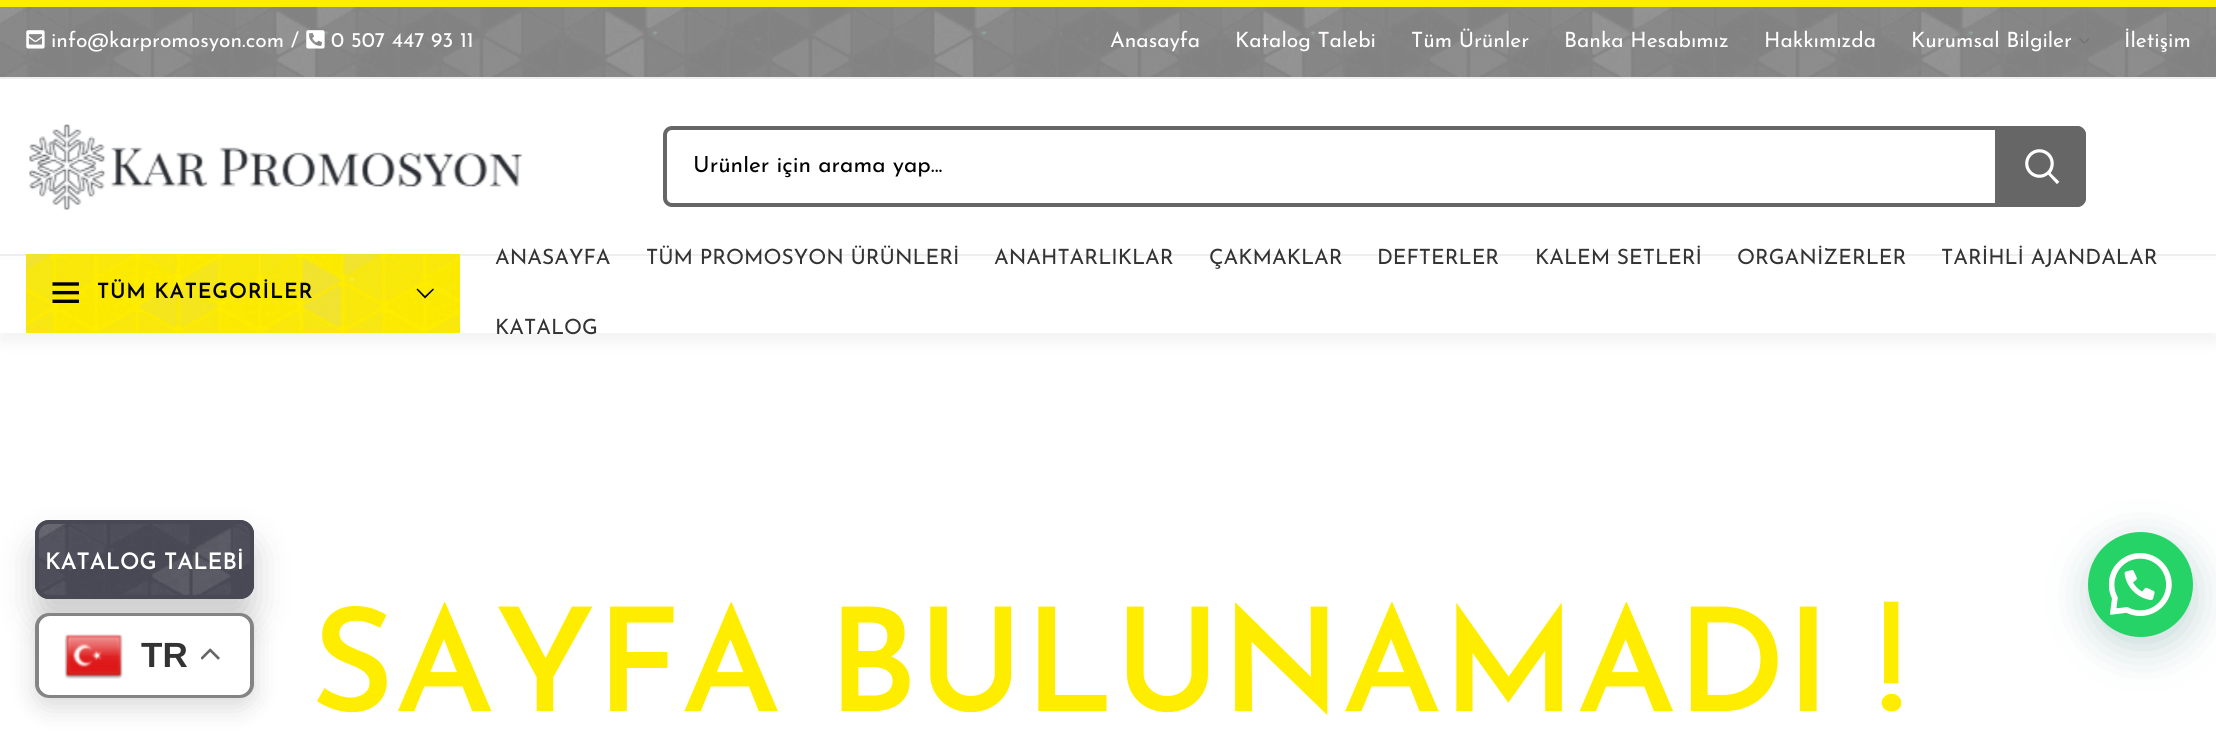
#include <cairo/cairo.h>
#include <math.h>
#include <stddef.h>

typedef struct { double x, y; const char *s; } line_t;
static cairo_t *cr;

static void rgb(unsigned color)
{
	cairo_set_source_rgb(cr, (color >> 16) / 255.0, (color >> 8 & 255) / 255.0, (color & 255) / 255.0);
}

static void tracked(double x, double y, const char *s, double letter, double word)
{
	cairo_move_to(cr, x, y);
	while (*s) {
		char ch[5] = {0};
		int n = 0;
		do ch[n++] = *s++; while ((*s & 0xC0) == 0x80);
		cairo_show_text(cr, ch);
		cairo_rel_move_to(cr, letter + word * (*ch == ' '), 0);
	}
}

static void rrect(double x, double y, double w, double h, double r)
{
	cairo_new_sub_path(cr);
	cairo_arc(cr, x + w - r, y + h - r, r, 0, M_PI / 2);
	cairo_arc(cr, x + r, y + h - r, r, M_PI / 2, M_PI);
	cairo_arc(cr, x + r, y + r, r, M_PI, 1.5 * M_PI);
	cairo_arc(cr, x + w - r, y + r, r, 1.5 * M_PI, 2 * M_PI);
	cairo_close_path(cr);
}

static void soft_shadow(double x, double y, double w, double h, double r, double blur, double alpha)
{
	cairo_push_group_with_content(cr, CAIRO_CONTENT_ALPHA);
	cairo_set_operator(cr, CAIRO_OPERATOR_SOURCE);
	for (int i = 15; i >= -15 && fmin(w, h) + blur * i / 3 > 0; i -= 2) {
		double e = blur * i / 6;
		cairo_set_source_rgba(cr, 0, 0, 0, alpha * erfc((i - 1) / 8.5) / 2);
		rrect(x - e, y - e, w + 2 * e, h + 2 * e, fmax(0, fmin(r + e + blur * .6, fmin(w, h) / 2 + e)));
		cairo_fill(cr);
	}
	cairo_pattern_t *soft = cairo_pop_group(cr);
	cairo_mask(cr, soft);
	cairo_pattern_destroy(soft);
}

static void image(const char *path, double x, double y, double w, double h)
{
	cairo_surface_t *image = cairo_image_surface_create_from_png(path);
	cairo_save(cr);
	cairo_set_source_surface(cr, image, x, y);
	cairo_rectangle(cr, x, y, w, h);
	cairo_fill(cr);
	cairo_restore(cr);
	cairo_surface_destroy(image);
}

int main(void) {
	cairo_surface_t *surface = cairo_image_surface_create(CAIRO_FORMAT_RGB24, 2216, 746);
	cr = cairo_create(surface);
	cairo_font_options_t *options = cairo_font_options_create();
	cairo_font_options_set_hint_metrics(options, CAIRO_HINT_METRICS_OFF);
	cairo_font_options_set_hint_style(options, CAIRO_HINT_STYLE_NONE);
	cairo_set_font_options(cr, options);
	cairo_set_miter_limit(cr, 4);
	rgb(0xffffff);
	cairo_paint(cr);
	rgb(0x848484);
	cairo_rectangle(cr, 0, 7, 2216, 70);
	cairo_fill(cr);
	image("img/1.png", 0, 7, 2216, 70);
	rgb(0xffee00);
	cairo_rectangle(cr, 0, 0, 2216, 7);
	cairo_fill(cr);
	rgb(0xeeeeee);
	cairo_rectangle(cr, 0, 77, 2216, 2);
	cairo_fill(cr);
	image("img/2.png", 26, 30, 19, 19);
	image("img/3.png", 306, 30, 19, 19);
	image("img/4.png", 2079, 38, 11, 6);
	cairo_rectangle(cr, 0, 254, 2216, 2);
	cairo_fill(cr);
	image("img/5.png", 29, 124, 494, 86);
	rrect(665, 128, 1419, 77, 7);
	rgb(0x666666);
	cairo_set_line_width(cr, 4);
	cairo_stroke(cr);
	cairo_new_path(cr);
	cairo_move_to(cr, 1995, 126);
	cairo_line_to(cr, 2077, 126);
	cairo_curve_to(cr, 2082, 126, 2086, 130, 2086, 135);
	cairo_line_to(cr, 2086, 198);
	cairo_curve_to(cr, 2086, 203, 2082, 207, 2077, 207);
	cairo_line_to(cr, 1995, 207);
	cairo_close_path(cr);
	cairo_fill(cr);
	image("img/6.png", 2025, 149, 35, 35);
	rgb(0x000000);
	soft_shadow(0, 266, 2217, 77, 0, 7, 0.05);
	rgb(0xffffff);
	cairo_rectangle(cr, 0, 260, 2216, 73);
	cairo_fill(cr);
	rgb(0xffed00);
	cairo_rectangle(cr, 26, 254, 434, 79);
	cairo_fill(cr);
	image("img/7.png", 26, 254, 434, 79);
	image("img/8.png", 52, 282, 27, 21);
	rgb(0x000000);
	cairo_new_path(cr);
	cairo_move_to(cr, 433, 288.5);
	cairo_line_to(cr, 434, 289.5);
	cairo_line_to(cr, 425, 298.5);
	cairo_line_to(cr, 416.5, 289.5);
	cairo_line_to(cr, 417.5, 288.5);
	cairo_line_to(cr, 425, 296);
	cairo_close_path(cr);
	cairo_fill(cr);
	rgb(0x000000);
	soft_shadow(35, 541, 219, 79, 14, 17.5, 0.2);
	rgb(0x494956);
	rrect(35, 520, 219, 79, 14);
	cairo_fill(cr);
	image("img/9.png", 35, 520, 218, 78);
	rrect(37, 522, 215, 75, 12);
	cairo_stroke(cr);
	rgb(0x075e54);
	soft_shadow(2090, 543, 105, 105, 52.5, 21, 0.24);
	rgb(0x25d366);
	cairo_arc(cr, 2140.5, 584.5, 52.5, 0, 2 * M_PI);
	cairo_fill(cr);
	image("img/10.png", 2109, 553, 63, 63);
	rgb(0x000000);
	soft_shadow(35, 621, 219, 86, 14, 13, 0.15);
	rrect(37, 615, 215, 81, 12);
	rgb(0x848484);
	cairo_stroke(cr);
	rgb(0xffffff);
	rrect(39, 616, 211, 79, 11);
	cairo_fill(cr);
	image("img/11.png", 64, 634, 59, 45);
	image("img/12.png", 201, 648, 19, 12);
	cairo_select_font_face(cr, "Josefin Sans", CAIRO_FONT_SLANT_NORMAL, CAIRO_FONT_WEIGHT_NORMAL);
	cairo_set_font_size(cr, 21);
	{
		static const line_t items[] = {
			{51, 47, "info@karpromosyon.com /"},
			{331, 47, "0 507 447 93 11"},
			{1110, 47, "Anasayfa"},
			{1235, 47, "Katalog Talebi"},
			{1411, 47, "Tüm Ürünler"},
			{1564, 47, "Banka Hesabımız"},
			{1764, 47, "Hakkımızda"},
			{1911, 47, "Kurumsal Bilgiler"},
			{2124, 47, "İletişim"},
		};
		for (size_t i = 0; i < sizeof items / sizeof *items; i++) {
			cairo_move_to(cr, items[i].x, items[i].y);
			cairo_show_text(cr, items[i].s);
		}
	}
	cairo_save(cr);
	cairo_rectangle(cr, 693, 156, 1302, 23);
	cairo_clip(cr);
	cairo_set_font_size(cr, 22.75);
	rgb(0x020202);
	cairo_move_to(cr, 693, 172);
	cairo_show_text(cr, "Ürünler için arama yap...");
	cairo_restore(cr);
	cairo_select_font_face(cr, "Josefin Sans SemiBold", CAIRO_FONT_SLANT_NORMAL, CAIRO_FONT_WEIGHT_NORMAL);
	rgb(0x020202);
	tracked(97, 298, "TÜM KATEGORİLER", 0.75, 0);
	cairo_select_font_face(cr, "Josefin Sans", CAIRO_FONT_SLANT_NORMAL, CAIRO_FONT_WEIGHT_NORMAL);
	rgb(0x333333);
	{
		static const line_t items[] = {
			{495, 264, "ANASAYFA"},
			{646, 264, "TÜM PROMOSYON ÜRÜNLERİ"},
			{994, 264, "ANAHTARLIKLAR"},
			{1209, 264, "ÇAKMAKLAR"},
			{1377, 264, "DEFTERLER"},
			{1535, 264, "KALEM SETLERİ"},
			{1737, 264, "ORGANİZERLER"},
			{1941, 264, "TARİHLİ AJANDALAR"},
			{495, 334, "KATALOG"},
		};
		for (size_t i = 0; i < sizeof items / sizeof *items; i++) {
			cairo_move_to(cr, items[i].x, items[i].y);
			cairo_show_text(cr, items[i].s);
		}
	}
	cairo_select_font_face(cr, "Josefin Sans SemiBold", CAIRO_FONT_SLANT_NORMAL, CAIRO_FONT_WEIGHT_NORMAL);
	cairo_set_font_size(cr, 143.5);
	rgb(0xffed00);
	cairo_move_to(cr, 311, 711);
	cairo_show_text(cr, "SAYFA BULUNAMADI !");
	cairo_set_font_size(cr, 22.75);
	rgb(0xffffff);
	cairo_move_to(cr, 45, 569);
	cairo_show_text(cr, "KATALOG TALEBİ");
	cairo_select_font_face(cr, "Liberation Sans", CAIRO_FONT_SLANT_NORMAL, CAIRO_FONT_WEIGHT_BOLD);
	cairo_set_font_size(cr, 35);
	rgb(0x333333);
	cairo_move_to(cr, 141, 667);
	cairo_show_text(cr, "TR");
	cairo_surface_write_to_png(surface, "page.png");
	cairo_font_options_destroy(options);
	cairo_destroy(cr);
	cairo_surface_destroy(surface);
	return 0;
}
